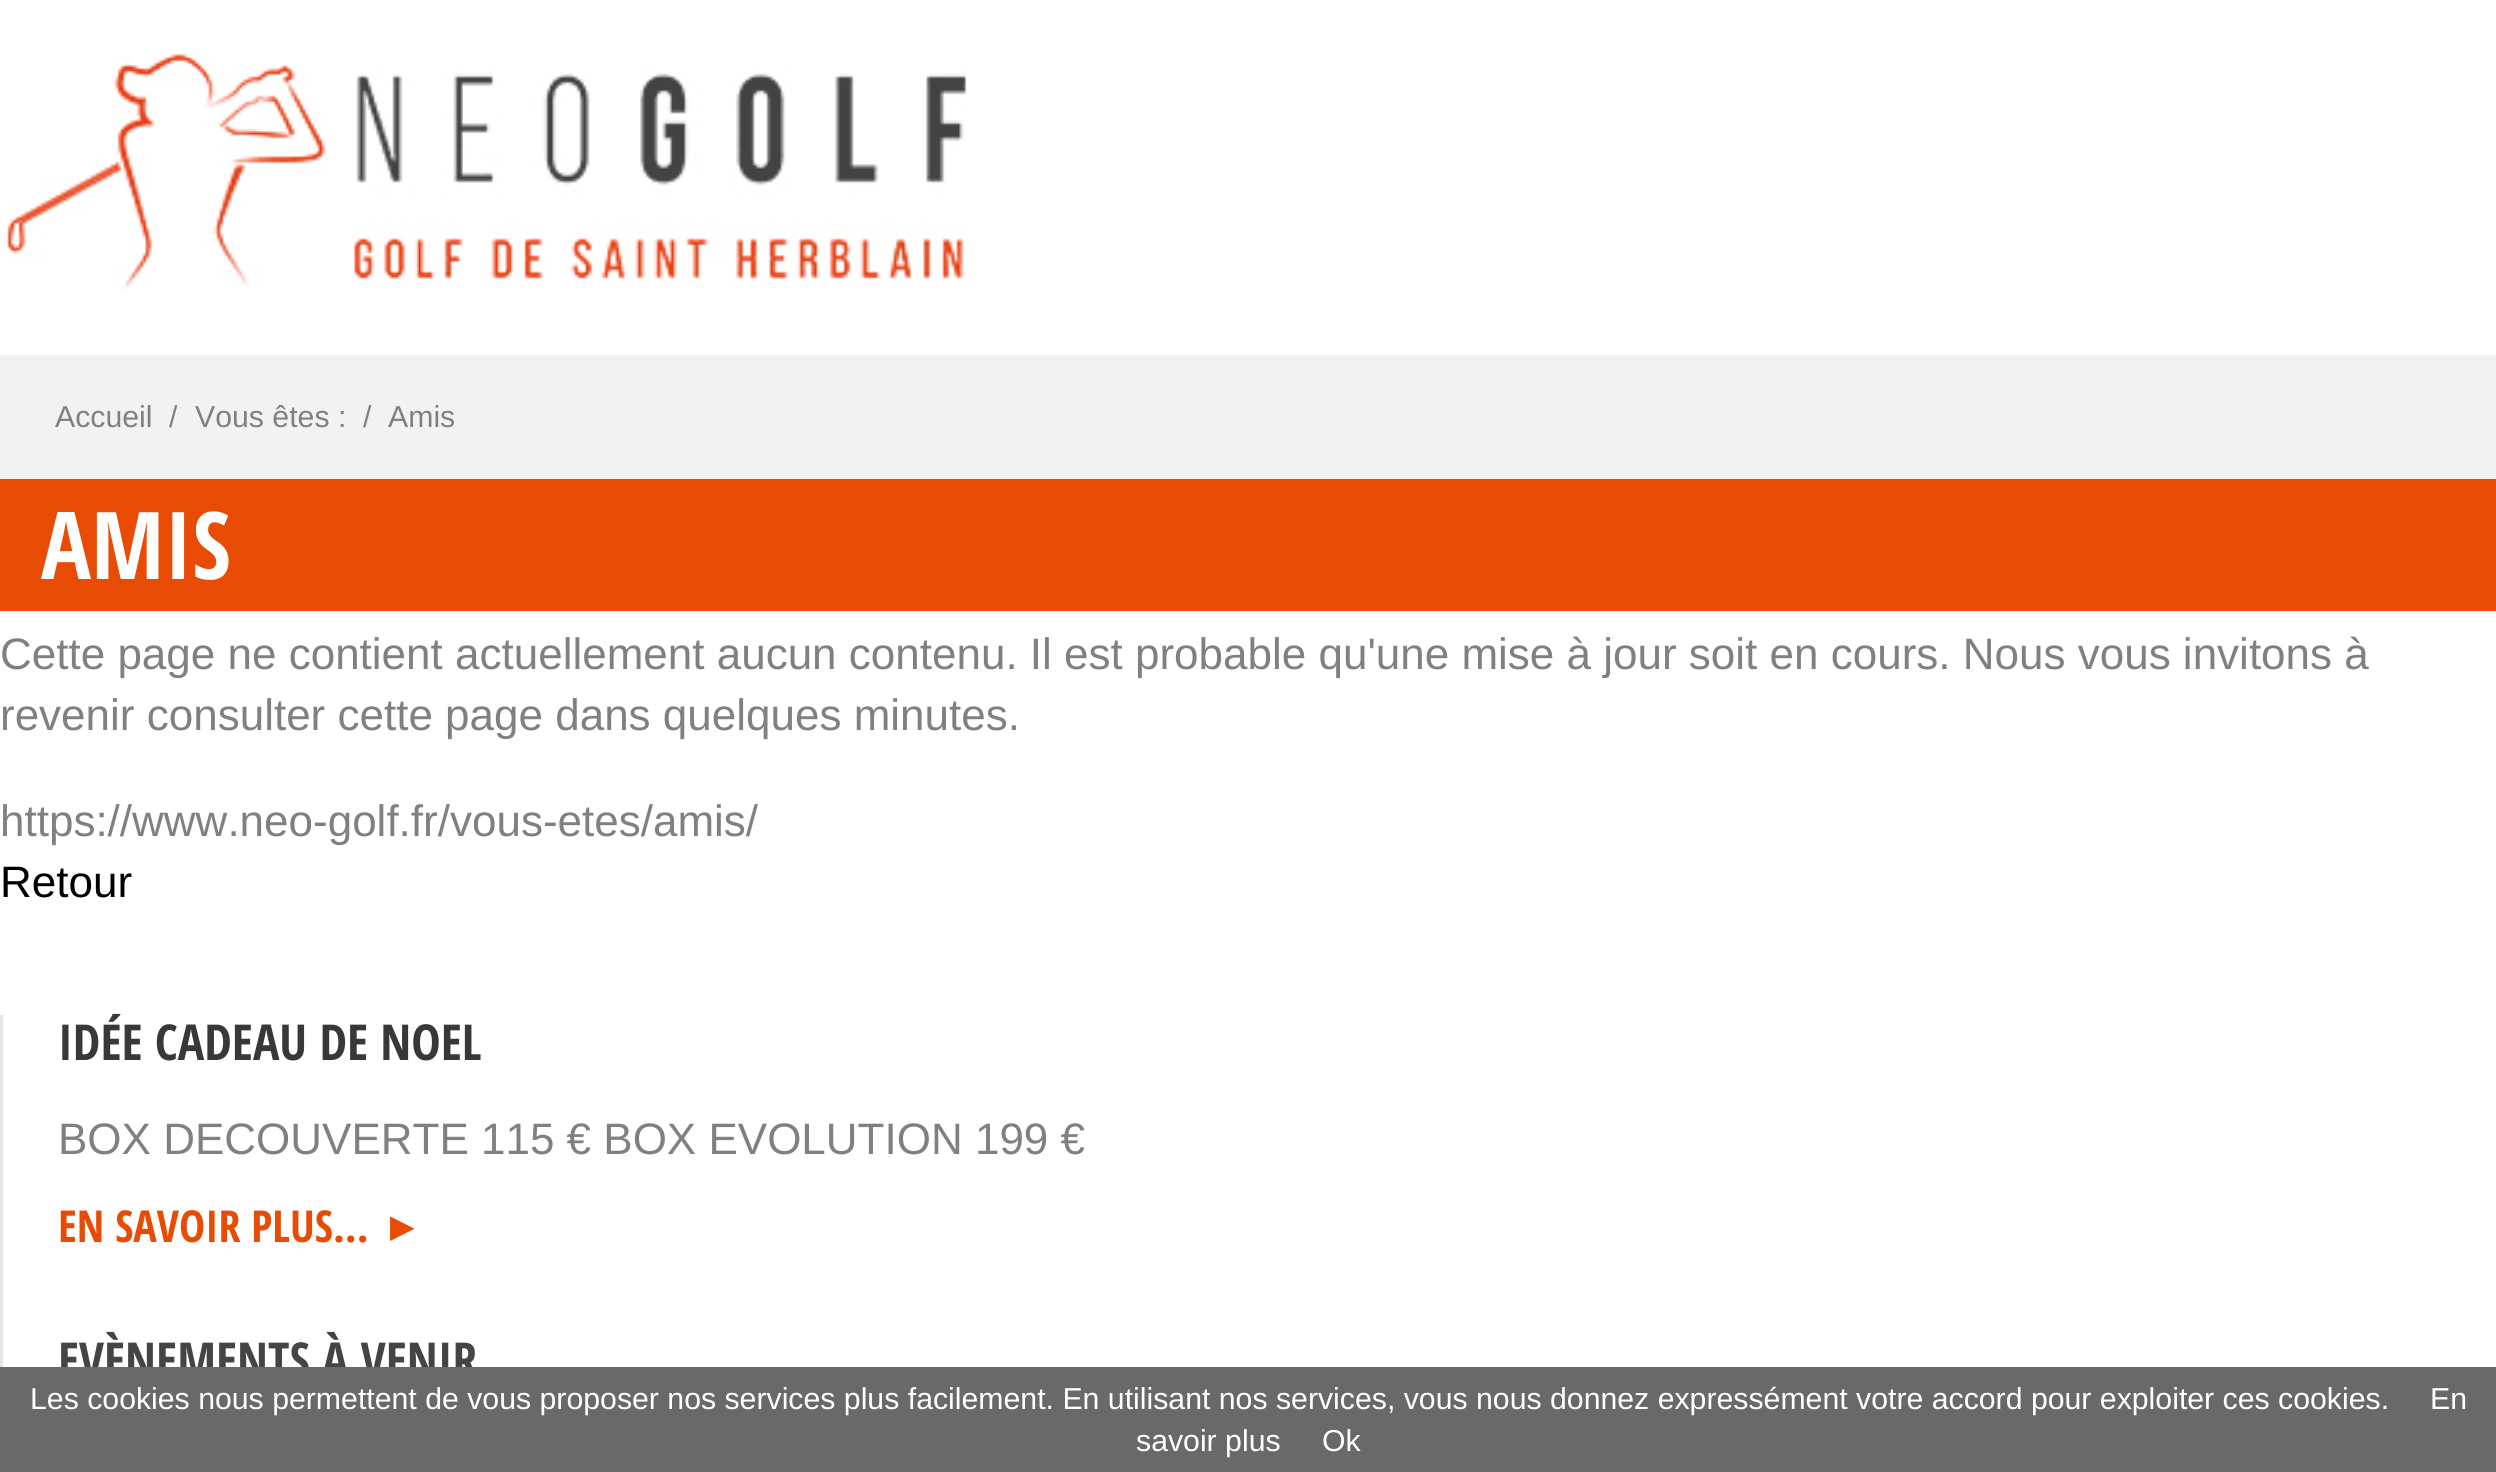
#include <cairo/cairo.h>
#include <math.h>
#include <stddef.h>

typedef struct { double x, y; const char *s; } line_t;
typedef struct { double x, y, w, h; unsigned color; } box_t;
static cairo_t *cr;

static void rgb(unsigned color)
{
	cairo_set_source_rgb(cr, (color >> 16) / 255.0, (color >> 8 & 255) / 255.0, (color & 255) / 255.0);
}

static void image(const char *path, double x, double y, double w, double h)
{
	cairo_surface_t *image = cairo_image_surface_create_from_png(path);
	cairo_save(cr);
	cairo_set_source_surface(cr, image, x, y);
	cairo_rectangle(cr, x, y, w, h);
	cairo_fill(cr);
	cairo_restore(cr);
	cairo_surface_destroy(image);
}

int main(void) {
	cairo_surface_t *surface = cairo_image_surface_create(CAIRO_FORMAT_RGB24, 2496, 1472);
	cr = cairo_create(surface);
	cairo_font_options_t *options = cairo_font_options_create();
	cairo_font_options_set_hint_metrics(options, CAIRO_HINT_METRICS_OFF);
	cairo_font_options_set_hint_style(options, CAIRO_HINT_STYLE_NONE);
	cairo_set_font_options(cr, options);
	cairo_set_miter_limit(cr, 4);
	rgb(0xffffff);
	cairo_paint(cr);
	image("img/1.png", 7, 54, 960, 236);
	{
		static const box_t items[] = {
			{0, 355, 2496, 124, 0xf2f2f2},
			{0, 479, 2496, 132, 0xe84b04},
			{0, 1015, 3, 352, 0xe6e5e5},
		};
		for (size_t i = 0; i < sizeof items / sizeof *items; i++) {
			rgb(items[i].color);
			cairo_rectangle(cr, items[i].x, items[i].y, items[i].w, items[i].h);
			cairo_fill(cr);
		}
	}
	cairo_select_font_face(cr, "Liberation Sans", CAIRO_FONT_SLANT_NORMAL, CAIRO_FONT_WEIGHT_NORMAL);
	cairo_set_font_size(cr, 30.25);
	rgb(0x808080);
	{
		static const line_t items[] = {
			{55, 427, "Accueil"},
			{169, 427, "/"},
			{195, 427, "Vous êtes :"},
			{363, 427, "/"},
			{388, 427, "Amis"},
		};
		for (size_t i = 0; i < sizeof items / sizeof *items; i++) {
			cairo_move_to(cr, items[i].x, items[i].y);
			cairo_show_text(cr, items[i].s);
		}
	}
	cairo_select_font_face(cr, "Open Sans Condensed", CAIRO_FONT_SLANT_NORMAL, CAIRO_FONT_WEIGHT_BOLD);
	cairo_set_font_size(cr, 93.5);
	rgb(0xffffff);
	cairo_move_to(cr, 41, 579);
	cairo_show_text(cr, "AMIS");
	cairo_select_font_face(cr, "Liberation Sans", CAIRO_FONT_SLANT_NORMAL, CAIRO_FONT_WEIGHT_NORMAL);
	cairo_set_font_size(cr, 44);
	rgb(0x808080);
	{
		static const line_t items[] = {
			{0, 669, "Cette page ne contient actuellement aucun contenu. Il est probable qu'une mise à jour soit en cours. Nous vous invitons à"},
			{0, 730, "revenir consulter cette page dans quelques minutes."},
			{0, 836, "https://www.neo-golf.fr/vous-etes/amis/"},
		};
		for (size_t i = 0; i < sizeof items / sizeof *items; i++) {
			cairo_move_to(cr, items[i].x, items[i].y);
			cairo_show_text(cr, items[i].s);
		}
	}
	rgb(0x000000);
	cairo_move_to(cr, 0, 897);
	cairo_show_text(cr, "Retour");
	cairo_select_font_face(cr, "Open Sans Condensed", CAIRO_FONT_SLANT_NORMAL, CAIRO_FONT_WEIGHT_BOLD);
	cairo_set_font_size(cr, 49.5);
	rgb(0x383838);
	cairo_move_to(cr, 58, 1060);
	cairo_show_text(cr, "IDÉE CADEAU DE NOEL");
	cairo_select_font_face(cr, "Liberation Sans", CAIRO_FONT_SLANT_NORMAL, CAIRO_FONT_WEIGHT_NORMAL);
	cairo_set_font_size(cr, 44);
	rgb(0x808080);
	cairo_move_to(cr, 58, 1154);
	cairo_show_text(cr, "BOX DECOUVERTE 115 € BOX EVOLUTION 199 €");
	cairo_select_font_face(cr, "Open Sans Condensed", CAIRO_FONT_SLANT_NORMAL, CAIRO_FONT_WEIGHT_BOLD);
	rgb(0xe84b04);
	cairo_move_to(cr, 58, 1242);
	cairo_show_text(cr, "EN SAVOIR PLUS...");
	cairo_select_font_face(cr, "DejaVu Sans", CAIRO_FONT_SLANT_NORMAL, CAIRO_FONT_WEIGHT_BOLD);
	cairo_set_font_size(cr, 30.25);
	cairo_move_to(cr, 390, 1237);
	cairo_show_text(cr, "▶");
	cairo_select_font_face(cr, "Open Sans Condensed", CAIRO_FONT_SLANT_NORMAL, CAIRO_FONT_WEIGHT_BOLD);
	cairo_set_font_size(cr, 49.5);
	rgb(0x444444);
	cairo_move_to(cr, 58, 1378);
	cairo_show_text(cr, "EVÈNEMENTS À VENIR");
	rgb(0x696969);
	cairo_rectangle(cr, 0, 1367, 2496, 105);
	cairo_fill(cr);
	cairo_select_font_face(cr, "Liberation Sans", CAIRO_FONT_SLANT_NORMAL, CAIRO_FONT_WEIGHT_NORMAL);
	cairo_set_font_size(cr, 30.25);
	rgb(0xffffff);
	{
		static const line_t items[] = {
			{30, 1409, "Les cookies nous permettent de vous proposer nos services plus facilement. En utilisant nos services, vous nous donnez expressément votre accord pour exploiter ces cookies."},
			{2430, 1409, "En"},
			{1136, 1451, "savoir plus"},
			{1322, 1451, "Ok"},
		};
		for (size_t i = 0; i < sizeof items / sizeof *items; i++) {
			cairo_move_to(cr, items[i].x, items[i].y);
			cairo_show_text(cr, items[i].s);
		}
	}
	cairo_surface_write_to_png(surface, "page.png");
	cairo_font_options_destroy(options);
	cairo_destroy(cr);
	cairo_surface_destroy(surface);
	return 0;
}
